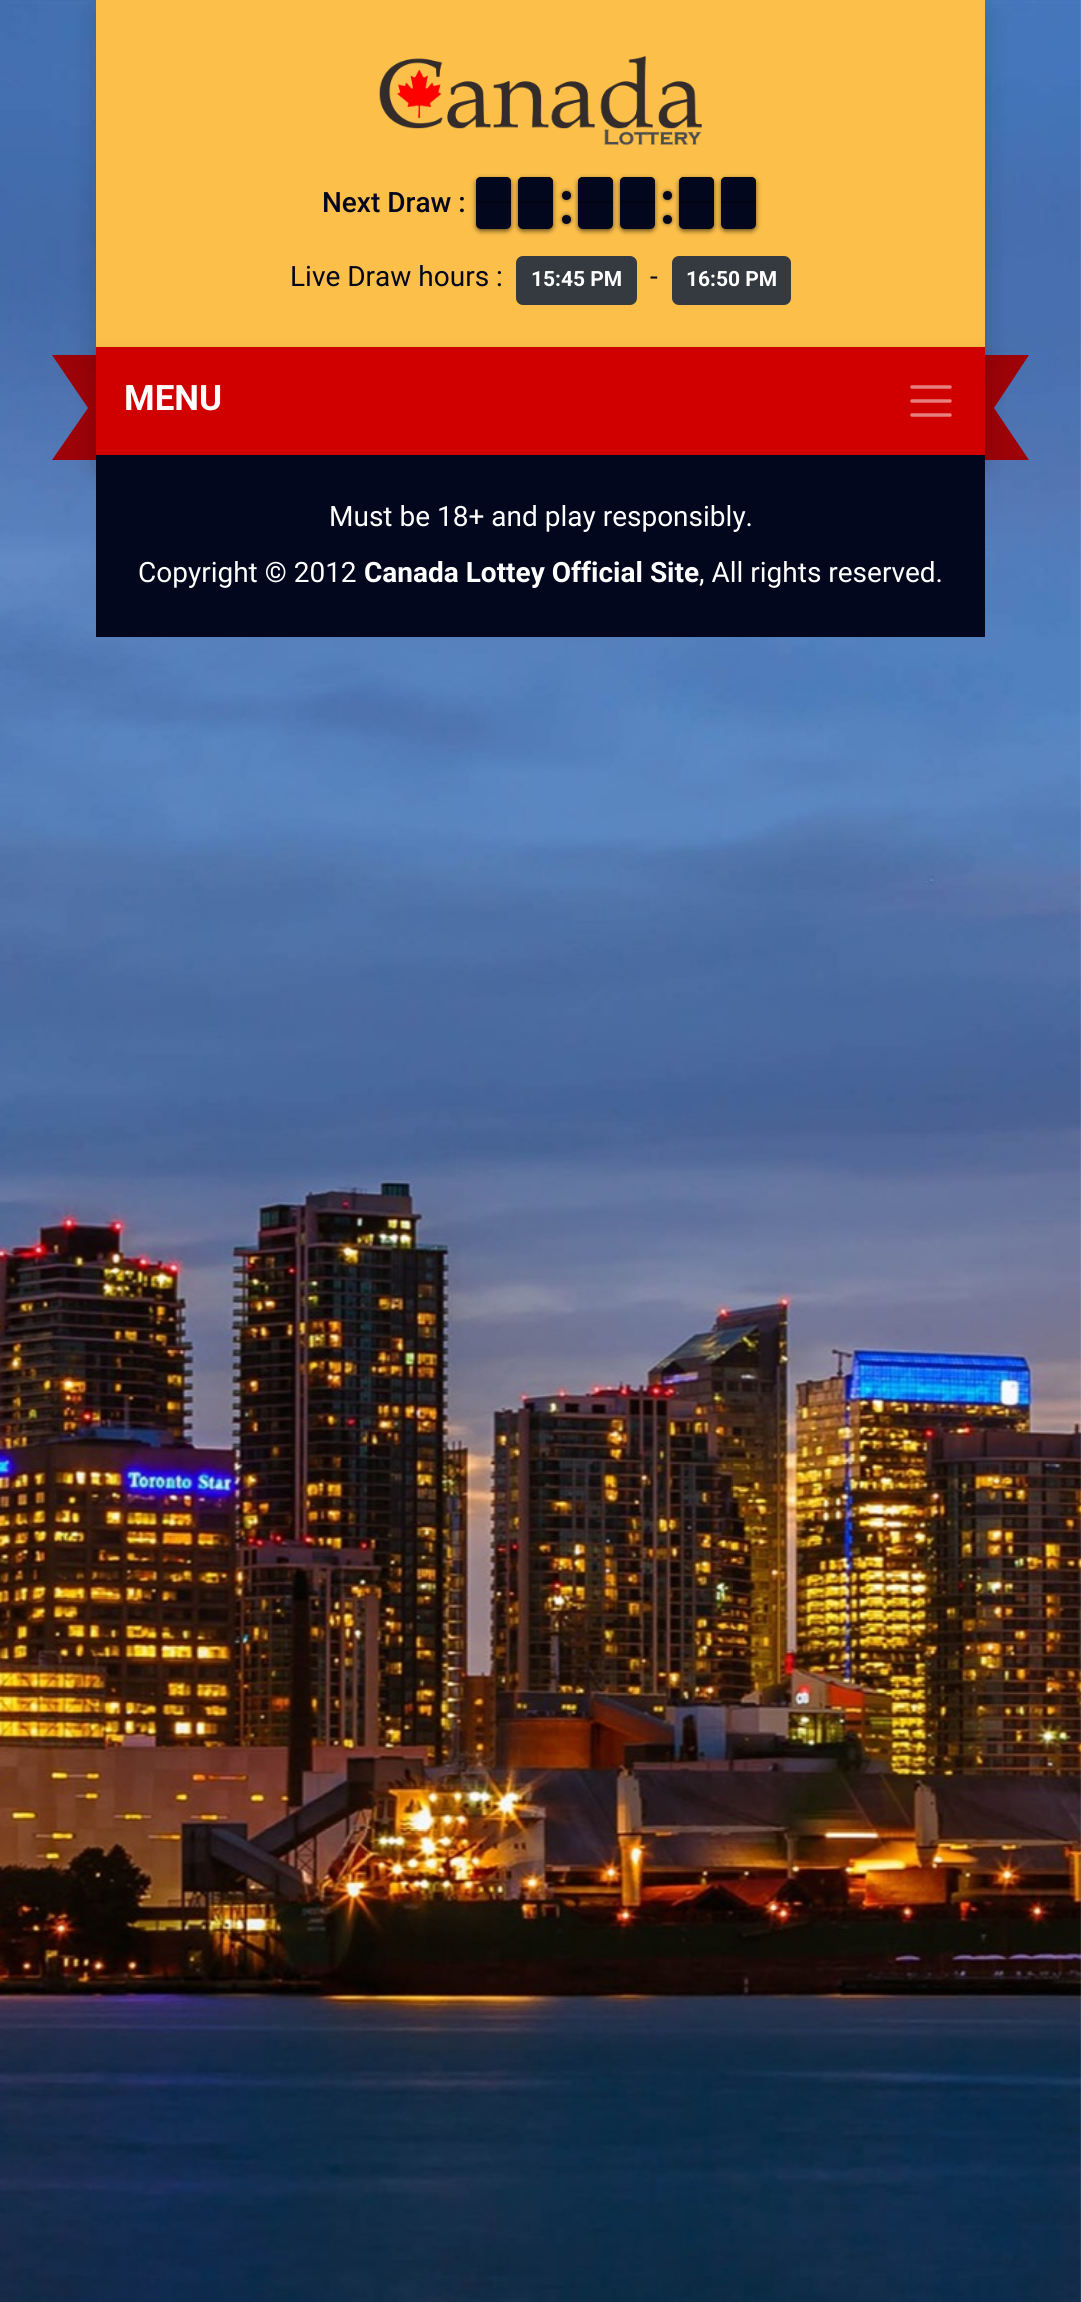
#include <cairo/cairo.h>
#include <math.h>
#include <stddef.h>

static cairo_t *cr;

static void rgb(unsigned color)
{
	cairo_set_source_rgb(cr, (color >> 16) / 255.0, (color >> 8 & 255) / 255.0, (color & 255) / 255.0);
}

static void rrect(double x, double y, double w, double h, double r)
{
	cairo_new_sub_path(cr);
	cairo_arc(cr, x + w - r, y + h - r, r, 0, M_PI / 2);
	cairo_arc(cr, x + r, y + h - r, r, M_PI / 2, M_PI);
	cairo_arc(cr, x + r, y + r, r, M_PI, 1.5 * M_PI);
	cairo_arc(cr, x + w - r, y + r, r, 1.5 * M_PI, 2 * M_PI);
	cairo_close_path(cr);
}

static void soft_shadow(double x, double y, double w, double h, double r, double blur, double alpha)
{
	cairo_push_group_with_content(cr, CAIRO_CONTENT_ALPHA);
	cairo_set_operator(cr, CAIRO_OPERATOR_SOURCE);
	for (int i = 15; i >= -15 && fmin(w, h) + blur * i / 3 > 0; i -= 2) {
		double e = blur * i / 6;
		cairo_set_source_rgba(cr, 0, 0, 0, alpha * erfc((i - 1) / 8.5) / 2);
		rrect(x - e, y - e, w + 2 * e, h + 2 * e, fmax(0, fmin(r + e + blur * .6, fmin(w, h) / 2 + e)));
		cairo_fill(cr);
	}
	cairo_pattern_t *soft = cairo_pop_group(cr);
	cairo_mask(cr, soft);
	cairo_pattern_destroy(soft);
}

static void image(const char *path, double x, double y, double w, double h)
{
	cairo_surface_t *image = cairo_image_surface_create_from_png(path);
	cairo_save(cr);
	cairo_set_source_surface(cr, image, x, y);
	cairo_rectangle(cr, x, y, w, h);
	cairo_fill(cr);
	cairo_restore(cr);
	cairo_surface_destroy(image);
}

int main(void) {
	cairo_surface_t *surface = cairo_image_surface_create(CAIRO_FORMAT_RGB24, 1081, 2302);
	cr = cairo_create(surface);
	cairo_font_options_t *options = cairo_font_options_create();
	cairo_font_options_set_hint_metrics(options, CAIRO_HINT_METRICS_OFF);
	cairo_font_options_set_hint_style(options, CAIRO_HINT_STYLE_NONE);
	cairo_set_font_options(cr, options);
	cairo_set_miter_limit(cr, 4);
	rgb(0xffffff);
	cairo_paint(cr);
	image("img/1.png", 0, 0, 1081, 2302);
	rgb(0x9d0208);
	cairo_new_path(cr);
	cairo_move_to(cr, 52, 355);
	cairo_line_to(cr, 96, 355);
	cairo_line_to(cr, 96, 408);
	cairo_line_to(cr, 88, 408);
	cairo_close_path(cr);
	cairo_fill(cr);
	cairo_new_path(cr);
	cairo_move_to(cr, 985, 355);
	cairo_line_to(cr, 1029, 355);
	cairo_line_to(cr, 994, 408);
	cairo_line_to(cr, 985, 408);
	cairo_close_path(cr);
	cairo_fill(cr);
	rgb(0x000000);
	soft_shadow(96, 14, 889, 347, 0, 14, 0.15);
	rgb(0xfcbf49);
	cairo_rectangle(cr, 96, 0, 889, 347);
	cairo_fill(cr);
	image("img/2.png", 379, 56, 323, 90);
	rgb(0x000000);
	soft_shadow(476, 179, 35, 52, 5, 2.5, 0.6);
	rgb(0x03071e);
	rrect(476, 177, 35, 52, 5);
	cairo_fill(cr);
	rgb(0x000000);
	soft_shadow(518, 179, 35, 52, 5, 2.5, 0.6);
	rgb(0x03071e);
	cairo_new_path(cr);
	cairo_move_to(cr, 481, 177);
	cairo_line_to(cr, 506, 177);
	cairo_curve_to(cr, 509, 177, 511, 179, 511, 182);
	cairo_line_to(cr, 511, 203);
	cairo_line_to(cr, 476, 203);
	cairo_line_to(cr, 476, 182);
	cairo_curve_to(cr, 476, 179, 478, 177, 481, 177);
	cairo_close_path(cr);
	cairo_fill(cr);
	cairo_set_source_rgba(cr, 0, 0, 0, 0.4);
	cairo_rectangle(cr, 476, 201, 35, 2);
	cairo_fill(cr);
	rgb(0x03071e);
	rrect(518, 177, 35, 52, 5);
	cairo_fill(cr);
	cairo_new_path(cr);
	cairo_move_to(cr, 523, 177);
	cairo_line_to(cr, 548, 177);
	cairo_curve_to(cr, 551, 177, 553, 179, 553, 182);
	cairo_line_to(cr, 553, 203);
	cairo_line_to(cr, 518, 203);
	cairo_line_to(cr, 518, 182);
	cairo_curve_to(cr, 518, 179, 520, 177, 523, 177);
	cairo_close_path(cr);
	cairo_fill(cr);
	cairo_set_source_rgba(cr, 0, 0, 0, 0.4);
	cairo_rectangle(cr, 518, 201, 35, 2);
	cairo_fill(cr);
	rgb(0x000000);
	soft_shadow(562, 191, 9, 9, 4.5, 2, 0.5);
	rgb(0x03071e);
	cairo_arc(cr, 566.5, 195.5, 4.5, 0, 2 * M_PI);
	cairo_fill(cr);
	rgb(0x000000);
	soft_shadow(562, 215, 9, 9, 4.5, 2, 0.5);
	rgb(0x03071e);
	cairo_arc(cr, 566.5, 219.5, 4.5, 0, 2 * M_PI);
	cairo_fill(cr);
	rgb(0x000000);
	soft_shadow(578, 179, 35, 52, 5, 2.5, 0.6);
	rgb(0x03071e);
	rrect(578, 177, 35, 52, 5);
	cairo_fill(cr);
	rgb(0x000000);
	soft_shadow(620, 179, 35, 52, 5, 2.5, 0.6);
	rgb(0x03071e);
	cairo_new_path(cr);
	cairo_move_to(cr, 583, 177);
	cairo_line_to(cr, 608, 177);
	cairo_curve_to(cr, 611, 177, 613, 179, 613, 182);
	cairo_line_to(cr, 613, 203);
	cairo_line_to(cr, 578, 203);
	cairo_line_to(cr, 578, 182);
	cairo_curve_to(cr, 578, 179, 580, 177, 583, 177);
	cairo_close_path(cr);
	cairo_fill(cr);
	cairo_set_source_rgba(cr, 0, 0, 0, 0.4);
	cairo_rectangle(cr, 578, 201, 35, 2);
	cairo_fill(cr);
	rgb(0x03071e);
	rrect(620, 177, 35, 52, 5);
	cairo_fill(cr);
	cairo_new_path(cr);
	cairo_move_to(cr, 625, 177);
	cairo_line_to(cr, 650, 177);
	cairo_curve_to(cr, 653, 177, 655, 179, 655, 182);
	cairo_line_to(cr, 655, 203);
	cairo_line_to(cr, 620, 203);
	cairo_line_to(cr, 620, 182);
	cairo_curve_to(cr, 620, 179, 622, 177, 625, 177);
	cairo_close_path(cr);
	cairo_fill(cr);
	cairo_set_source_rgba(cr, 0, 0, 0, 0.4);
	cairo_rectangle(cr, 620, 201, 35, 2);
	cairo_fill(cr);
	rgb(0x000000);
	soft_shadow(663, 191, 9, 9, 4.5, 2, 0.5);
	rgb(0x03071e);
	cairo_arc(cr, 667.5, 195.5, 4.5, 0, 2 * M_PI);
	cairo_fill(cr);
	rgb(0x000000);
	soft_shadow(663, 215, 9, 9, 4.5, 2, 0.5);
	rgb(0x03071e);
	cairo_arc(cr, 667.5, 219.5, 4.5, 0, 2 * M_PI);
	cairo_fill(cr);
	rgb(0x000000);
	soft_shadow(679, 179, 35, 52, 5, 2.5, 0.6);
	rgb(0x03071e);
	rrect(679, 177, 35, 52, 5);
	cairo_fill(cr);
	rgb(0x000000);
	soft_shadow(721, 179, 35, 52, 5, 2.5, 0.6);
	rgb(0x03071e);
	cairo_new_path(cr);
	cairo_move_to(cr, 684, 177);
	cairo_line_to(cr, 709, 177);
	cairo_curve_to(cr, 712, 177, 714, 179, 714, 182);
	cairo_line_to(cr, 714, 203);
	cairo_line_to(cr, 679, 203);
	cairo_line_to(cr, 679, 182);
	cairo_curve_to(cr, 679, 179, 681, 177, 684, 177);
	cairo_close_path(cr);
	cairo_fill(cr);
	cairo_set_source_rgba(cr, 0, 0, 0, 0.4);
	cairo_rectangle(cr, 679, 201, 35, 2);
	cairo_fill(cr);
	rgb(0x03071e);
	rrect(721, 177, 35, 52, 5);
	cairo_fill(cr);
	cairo_new_path(cr);
	cairo_move_to(cr, 726, 177);
	cairo_line_to(cr, 751, 177);
	cairo_curve_to(cr, 754, 177, 756, 179, 756, 182);
	cairo_line_to(cr, 756, 203);
	cairo_line_to(cr, 721, 203);
	cairo_line_to(cr, 721, 182);
	cairo_curve_to(cr, 721, 179, 723, 177, 726, 177);
	cairo_close_path(cr);
	cairo_fill(cr);
	cairo_set_source_rgba(cr, 0, 0, 0, 0.4);
	cairo_rectangle(cr, 721, 201, 35, 2);
	cairo_fill(cr);
	rgb(0x343a40);
	rrect(516, 256, 121, 49, 7);
	cairo_fill(cr);
	rrect(672, 256, 119, 49, 7);
	cairo_fill(cr);
	rgb(0x9d0208);
	cairo_new_path(cr);
	cairo_move_to(cr, 96, 460);
	cairo_line_to(cr, 52, 460);
	cairo_line_to(cr, 88, 408);
	cairo_line_to(cr, 96, 408);
	cairo_close_path(cr);
	cairo_fill(cr);
	cairo_new_path(cr);
	cairo_move_to(cr, 1029, 460);
	cairo_line_to(cr, 985, 460);
	cairo_line_to(cr, 985, 408);
	cairo_line_to(cr, 994, 408);
	cairo_close_path(cr);
	cairo_fill(cr);
	rgb(0x000000);
	soft_shadow(96, 361, 889, 108, 0, 14, 0.15);
	rgb(0xd00000);
	cairo_rectangle(cr, 96, 347, 889, 108);
	cairo_fill(cr);
	cairo_new_path(cr);
	cairo_move_to(cr, 912, 387);
	cairo_line_to(cr, 950, 387);
	cairo_move_to(cr, 912, 401);
	cairo_line_to(cr, 950, 401);
	cairo_move_to(cr, 912, 415);
	cairo_line_to(cr, 950, 415);
	rgb(0xe88080);
	cairo_set_line_width(cr, 3.5);
	cairo_set_line_cap(cr, CAIRO_LINE_CAP_ROUND);
	cairo_stroke(cr);
	rgb(0x03071e);
	cairo_rectangle(cr, 96, 455, 889, 182);
	cairo_fill(cr);
	cairo_select_font_face(cr, "Roboto Medium", CAIRO_FONT_SLANT_NORMAL, CAIRO_FONT_WEIGHT_NORMAL);
	cairo_set_font_size(cr, 28);
	cairo_move_to(cr, 322, 212);
	cairo_show_text(cr, "Next Draw :");
	cairo_select_font_face(cr, "Roboto", CAIRO_FONT_SLANT_NORMAL, CAIRO_FONT_WEIGHT_NORMAL);
	cairo_move_to(cr, 290, 286);
	cairo_show_text(cr, "Live Draw hours :");
	cairo_select_font_face(cr, "Roboto", CAIRO_FONT_SLANT_NORMAL, CAIRO_FONT_WEIGHT_BOLD);
	cairo_set_font_size(cr, 21);
	rgb(0xffffff);
	cairo_move_to(cr, 531, 286);
	cairo_show_text(cr, "15:45 PM");
	cairo_select_font_face(cr, "Roboto", CAIRO_FONT_SLANT_NORMAL, CAIRO_FONT_WEIGHT_NORMAL);
	cairo_set_font_size(cr, 28);
	rgb(0x03071e);
	cairo_move_to(cr, 650, 286);
	cairo_show_text(cr, "-");
	cairo_select_font_face(cr, "Roboto", CAIRO_FONT_SLANT_NORMAL, CAIRO_FONT_WEIGHT_BOLD);
	cairo_set_font_size(cr, 21);
	rgb(0xffffff);
	cairo_move_to(cr, 686, 286);
	cairo_show_text(cr, "16:50 PM");
	cairo_set_font_size(cr, 35);
	cairo_move_to(cr, 124, 410);
	cairo_show_text(cr, "MENU");
	cairo_select_font_face(cr, "Roboto", CAIRO_FONT_SLANT_NORMAL, CAIRO_FONT_WEIGHT_NORMAL);
	cairo_set_font_size(cr, 28);
	cairo_move_to(cr, 329, 526);
	cairo_show_text(cr, "Must be 18+ and play responsibly.");
	cairo_move_to(cr, 138, 582);
	cairo_show_text(cr, "Copyright © 2012");
	cairo_select_font_face(cr, "Roboto", CAIRO_FONT_SLANT_NORMAL, CAIRO_FONT_WEIGHT_BOLD);
	cairo_move_to(cr, 364, 582);
	cairo_show_text(cr, "Canada Lottey Official Site");
	cairo_select_font_face(cr, "Roboto", CAIRO_FONT_SLANT_NORMAL, CAIRO_FONT_WEIGHT_NORMAL);
	cairo_move_to(cr, 699, 582);
	cairo_show_text(cr, ", All rights reserved.");
	cairo_surface_write_to_png(surface, "page.png");
	cairo_font_options_destroy(options);
	cairo_destroy(cr);
	cairo_surface_destroy(surface);
	return 0;
}
